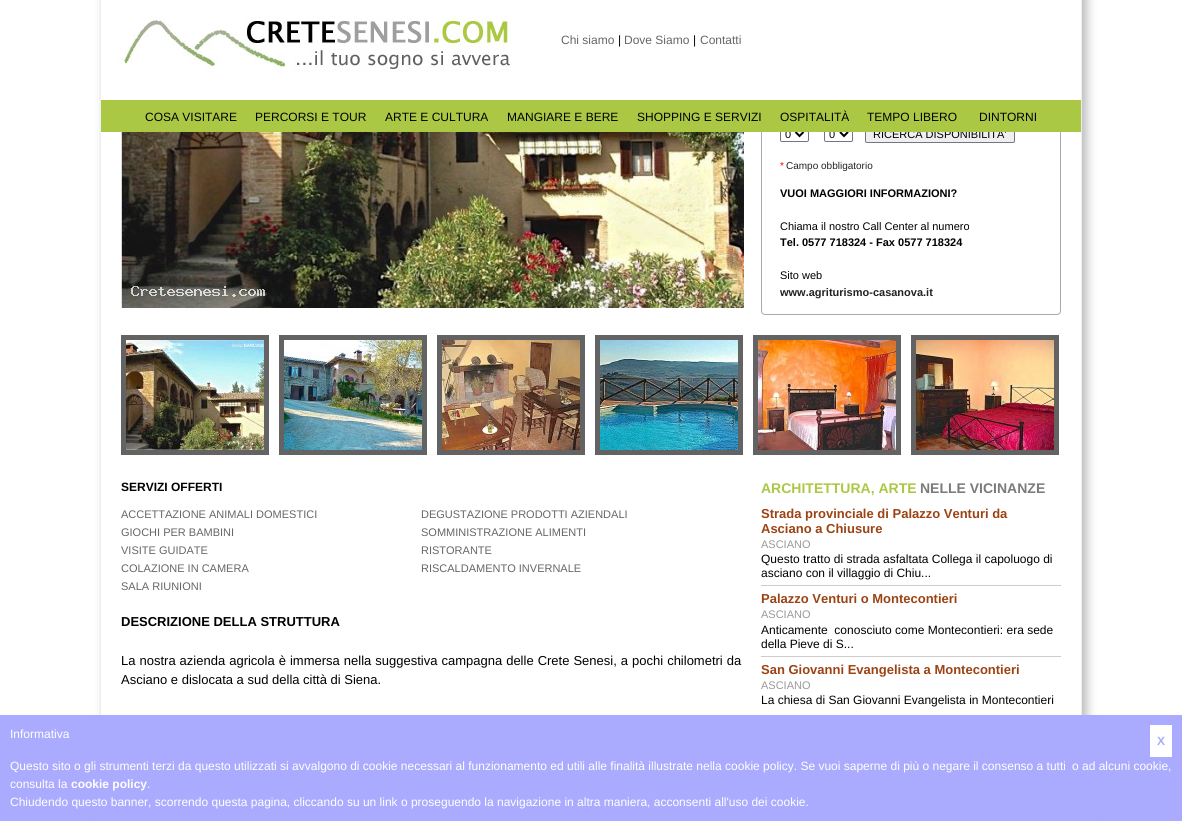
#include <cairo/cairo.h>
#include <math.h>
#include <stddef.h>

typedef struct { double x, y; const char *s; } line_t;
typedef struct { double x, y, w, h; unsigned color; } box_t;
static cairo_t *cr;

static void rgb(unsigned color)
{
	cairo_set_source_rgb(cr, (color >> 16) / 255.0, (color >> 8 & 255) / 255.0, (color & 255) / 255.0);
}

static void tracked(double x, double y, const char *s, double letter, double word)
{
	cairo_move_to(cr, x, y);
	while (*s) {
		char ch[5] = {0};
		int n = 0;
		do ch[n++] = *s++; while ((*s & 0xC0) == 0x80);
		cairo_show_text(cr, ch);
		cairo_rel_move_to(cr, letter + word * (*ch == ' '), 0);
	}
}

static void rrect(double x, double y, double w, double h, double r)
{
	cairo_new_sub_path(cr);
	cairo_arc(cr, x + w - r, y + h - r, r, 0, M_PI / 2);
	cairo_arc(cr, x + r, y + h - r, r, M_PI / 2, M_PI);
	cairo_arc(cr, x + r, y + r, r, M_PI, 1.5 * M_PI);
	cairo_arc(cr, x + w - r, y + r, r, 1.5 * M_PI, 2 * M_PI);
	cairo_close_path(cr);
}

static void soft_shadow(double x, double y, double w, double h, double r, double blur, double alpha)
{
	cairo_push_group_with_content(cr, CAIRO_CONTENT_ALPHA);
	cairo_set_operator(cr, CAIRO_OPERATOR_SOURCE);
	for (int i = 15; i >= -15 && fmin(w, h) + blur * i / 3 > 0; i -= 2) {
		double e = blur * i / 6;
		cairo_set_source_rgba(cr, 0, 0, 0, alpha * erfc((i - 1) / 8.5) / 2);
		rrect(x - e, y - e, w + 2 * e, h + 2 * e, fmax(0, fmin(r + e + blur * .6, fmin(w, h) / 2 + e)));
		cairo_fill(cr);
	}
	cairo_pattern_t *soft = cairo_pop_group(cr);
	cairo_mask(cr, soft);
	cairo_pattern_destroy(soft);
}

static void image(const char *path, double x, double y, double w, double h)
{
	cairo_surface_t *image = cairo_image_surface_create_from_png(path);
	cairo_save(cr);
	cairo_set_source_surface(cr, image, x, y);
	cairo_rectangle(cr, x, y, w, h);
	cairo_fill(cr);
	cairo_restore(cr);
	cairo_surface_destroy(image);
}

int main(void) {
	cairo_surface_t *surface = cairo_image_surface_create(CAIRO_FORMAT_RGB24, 1182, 826);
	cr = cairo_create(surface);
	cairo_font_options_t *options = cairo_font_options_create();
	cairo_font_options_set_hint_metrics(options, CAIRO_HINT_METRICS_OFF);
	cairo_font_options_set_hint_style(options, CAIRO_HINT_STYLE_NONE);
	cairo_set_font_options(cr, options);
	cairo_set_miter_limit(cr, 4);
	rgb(0xffffff);
	cairo_paint(cr);
	cairo_save(cr);
	cairo_set_fill_rule(cr, CAIRO_FILL_RULE_EVEN_ODD);
	cairo_new_path(cr);
	cairo_move_to(cr, 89, 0);
	cairo_line_to(cr, 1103, 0);
	cairo_line_to(cr, 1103, 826);
	cairo_line_to(cr, 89, 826);
	cairo_close_path(cr);
	cairo_move_to(cr, 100, -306);
	cairo_line_to(cr, 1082, -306);
	cairo_line_to(cr, 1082, 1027);
	cairo_line_to(cr, 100, 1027);
	cairo_close_path(cr);
	cairo_clip(cr);
	rgb(0xbbbbbb);
	soft_shadow(105, -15, 982, 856, 0, 5, 1);
	cairo_restore(cr);
	cairo_rectangle(cr, 100.5, -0.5, 981, 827);
	rgb(0xefefef);
	cairo_set_line_width(cr, 1);
	cairo_stroke(cr);
	rrect(761.5, -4.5, 299, 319, 3.5);
	rgb(0xaaaaaa);
	cairo_stroke(cr);
	rgb(0xffffff);
	cairo_rectangle(cr, 761, 0, 300, 100);
	cairo_fill(cr);
	image("img/1.png", 117, 16, 394, 56);
	image("img/2.png", 121, 132, 623, 176);
	rrect(780.5, 126.5, 28, 15, 1.5);
	rgb(0x767676);
	cairo_stroke(cr);
	cairo_new_path(cr);
	cairo_move_to(cr, 795.5, 132);
	cairo_line_to(cr, 799.5, 136);
	cairo_line_to(cr, 803.5, 132);
	rgb(0x000000);
	cairo_set_line_width(cr, 2);
	cairo_stroke(cr);
	rrect(824.5, 126.5, 28, 15, 1.5);
	rgb(0x767676);
	cairo_set_line_width(cr, 1);
	cairo_stroke(cr);
	cairo_new_path(cr);
	cairo_move_to(cr, 840, 132);
	cairo_line_to(cr, 844, 136);
	cairo_line_to(cr, 848, 132);
	rgb(0x000000);
	cairo_set_line_width(cr, 2);
	cairo_stroke(cr);
	rgb(0xefefef);
	rrect(865.5, 125.5, 149, 17, 1.5);
	cairo_fill_preserve(cr);
	rgb(0x767676);
	cairo_set_line_width(cr, 1);
	cairo_stroke(cr);
	cairo_rectangle(cr, 123.5, 337.5, 143, 115);
	rgb(0x636363);
	cairo_set_line_width(cr, 5);
	cairo_stroke(cr);
	image("img/3.png", 126, 340, 138, 110);
	cairo_rectangle(cr, 281.5, 337.5, 143, 115);
	cairo_stroke(cr);
	image("img/4.png", 284, 340, 138, 110);
	cairo_rectangle(cr, 439.5, 337.5, 143, 115);
	cairo_stroke(cr);
	image("img/5.png", 442, 340, 138, 110);
	cairo_rectangle(cr, 597.5, 337.5, 143, 115);
	cairo_stroke(cr);
	image("img/6.png", 600, 340, 138, 110);
	cairo_rectangle(cr, 755.5, 337.5, 143, 115);
	cairo_stroke(cr);
	image("img/7.png", 758, 340, 138, 110);
	cairo_rectangle(cr, 913.5, 337.5, 143, 115);
	cairo_stroke(cr);
	image("img/8.png", 916, 340, 138, 110);
	{
		static const box_t items[] = {
			{761, 585, 300, 1, 0xcccccc},
			{761, 656, 300, 1, 0xcccccc},
			{0, 715, 1182, 106, 0xaaaaff},
			{96, 821, 1000, 5, 0xffffff},
			{1150, 725, 22, 32, 0xffffff},
		};
		for (size_t i = 0; i < sizeof items / sizeof *items; i++) {
			rgb(items[i].color);
			cairo_rectangle(cr, items[i].x, items[i].y, items[i].w, items[i].h);
			cairo_fill(cr);
		}
	}
	cairo_select_font_face(cr, "Liberation Sans", CAIRO_FONT_SLANT_NORMAL, CAIRO_FONT_WEIGHT_NORMAL);
	cairo_set_font_size(cr, 12);
	rgb(0x666666);
	cairo_move_to(cr, 561, 44);
	cairo_show_text(cr, "Chi siamo");
	rgb(0x000000);
	cairo_move_to(cr, 618, 44);
	cairo_show_text(cr, "|");
	rgb(0x666666);
	cairo_move_to(cr, 624, 44);
	cairo_show_text(cr, "Dove Siamo");
	rgb(0x000000);
	cairo_move_to(cr, 693, 44);
	cairo_show_text(cr, "|");
	rgb(0x666666);
	cairo_move_to(cr, 700, 44);
	cairo_show_text(cr, "Contatti");
	cairo_set_font_size(cr, 11);
	rgb(0x000000);
	{
		static const line_t items[] = {
			{785, 138, "0"},
			{829, 138, "0"},
			{873, 138, "RICERCA DISPONIBILITA'"},
		};
		for (size_t i = 0; i < sizeof items / sizeof *items; i++) {
			cairo_move_to(cr, items[i].x, items[i].y);
			cairo_show_text(cr, items[i].s);
		}
	}
	rgb(0xabc844);
	cairo_rectangle(cr, 101, 100, 980, 32);
	cairo_fill(cr);
	cairo_set_font_size(cr, 12);
	rgb(0x000000);
	{
		static const line_t items[] = {
			{979, 121, "DINTORNI"},
			{867, 121, "TEMPO LIBERO"},
			{780, 121, "OSPITALITÀ"},
			{637, 121, "SHOPPING E SERVIZI"},
			{507, 121, "MANGIARE E BERE"},
			{385, 121, "ARTE E CULTURA"},
			{255, 121, "PERCORSI E TOUR"},
			{145, 121, "COSA VISITARE"},
		};
		for (size_t i = 0; i < sizeof items / sizeof *items; i++) {
			cairo_move_to(cr, items[i].x, items[i].y);
			cairo_show_text(cr, items[i].s);
		}
	}
	cairo_set_font_size(cr, 10);
	rgb(0xff0000);
	cairo_move_to(cr, 780, 169);
	cairo_show_text(cr, "*");
	rgb(0x222222);
	cairo_move_to(cr, 786, 169);
	cairo_show_text(cr, "Campo obbligatorio");
	cairo_select_font_face(cr, "Liberation Sans", CAIRO_FONT_SLANT_NORMAL, CAIRO_FONT_WEIGHT_BOLD);
	cairo_set_font_size(cr, 11);
	rgb(0x000000);
	cairo_move_to(cr, 780, 197);
	cairo_show_text(cr, "VUOI MAGGIORI INFORMAZIONI?");
	cairo_select_font_face(cr, "Liberation Sans", CAIRO_FONT_SLANT_NORMAL, CAIRO_FONT_WEIGHT_NORMAL);
	cairo_move_to(cr, 780, 230);
	cairo_show_text(cr, "Chiama il nostro Call Center al numero");
	cairo_select_font_face(cr, "Liberation Sans", CAIRO_FONT_SLANT_NORMAL, CAIRO_FONT_WEIGHT_BOLD);
	cairo_move_to(cr, 780, 246);
	cairo_show_text(cr, "Tel. 0577 718324 - Fax 0577 718324");
	cairo_select_font_face(cr, "Liberation Sans", CAIRO_FONT_SLANT_NORMAL, CAIRO_FONT_WEIGHT_NORMAL);
	cairo_move_to(cr, 780, 279);
	cairo_show_text(cr, "Sito web");
	cairo_select_font_face(cr, "Liberation Sans", CAIRO_FONT_SLANT_NORMAL, CAIRO_FONT_WEIGHT_BOLD);
	rgb(0x222222);
	cairo_move_to(cr, 780, 296);
	cairo_show_text(cr, "www.agriturismo-casanova.it");
	cairo_set_font_size(cr, 12);
	rgb(0x000000);
	cairo_move_to(cr, 121, 491);
	cairo_show_text(cr, "SERVIZI OFFERTI");
	cairo_select_font_face(cr, "Liberation Sans", CAIRO_FONT_SLANT_NORMAL, CAIRO_FONT_WEIGHT_NORMAL);
	cairo_set_font_size(cr, 11);
	rgb(0x666666);
	{
		static const line_t items[] = {
			{121, 518, "ACCETTAZIONE ANIMALI DOMESTICI"},
			{421, 518, "DEGUSTAZIONE PRODOTTI AZIENDALI"},
			{121, 536, "GIOCHI PER BAMBINI"},
			{421, 536, "SOMMINISTRAZIONE ALIMENTI"},
			{121, 554, "VISITE GUIDATE"},
			{421, 554, "RISTORANTE"},
			{121, 572, "COLAZIONE IN CAMERA"},
			{421, 572, "RISCALDAMENTO INVERNALE"},
			{121, 590, "SALA RIUNIONI"},
		};
		for (size_t i = 0; i < sizeof items / sizeof *items; i++) {
			cairo_move_to(cr, items[i].x, items[i].y);
			cairo_show_text(cr, items[i].s);
		}
	}
	cairo_select_font_face(cr, "Liberation Sans", CAIRO_FONT_SLANT_NORMAL, CAIRO_FONT_WEIGHT_BOLD);
	cairo_set_font_size(cr, 13);
	rgb(0x000000);
	cairo_move_to(cr, 121, 626);
	cairo_show_text(cr, "DESCRIZIONE DELLA STRUTTURA");
	cairo_select_font_face(cr, "Liberation Sans", CAIRO_FONT_SLANT_NORMAL, CAIRO_FONT_WEIGHT_NORMAL);
	tracked(121, 665, "La nostra azienda agricola è immersa nella suggestiva campagna delle Crete Senesi, a pochi chilometri da", 0, 0.4);
	cairo_move_to(cr, 121, 684);
	cairo_show_text(cr, "Asciano e dislocata a sud della città di Siena.");
	cairo_select_font_face(cr, "Liberation Sans", CAIRO_FONT_SLANT_NORMAL, CAIRO_FONT_WEIGHT_BOLD);
	cairo_set_font_size(cr, 14);
	rgb(0xabc844);
	cairo_move_to(cr, 761, 493);
	cairo_show_text(cr, "ARCHITETTURA, ARTE");
	rgb(0x7b7b7b);
	cairo_move_to(cr, 920, 493);
	cairo_show_text(cr, "NELLE VICINANZE");
	cairo_set_font_size(cr, 13);
	rgb(0x9c4313);
	cairo_move_to(cr, 761, 518);
	cairo_show_text(cr, "Strada provinciale di Palazzo Venturi da");
	cairo_move_to(cr, 761, 533);
	cairo_show_text(cr, "Asciano a Chiusure");
	cairo_select_font_face(cr, "Liberation Sans", CAIRO_FONT_SLANT_NORMAL, CAIRO_FONT_WEIGHT_NORMAL);
	cairo_set_font_size(cr, 11);
	rgb(0x999999);
	cairo_move_to(cr, 761, 548);
	cairo_show_text(cr, "ASCIANO");
	cairo_set_font_size(cr, 12);
	rgb(0x000000);
	cairo_move_to(cr, 761, 563);
	cairo_show_text(cr, "Questo tratto di strada asfaltata Collega il capoluogo di");
	cairo_move_to(cr, 761, 577);
	cairo_show_text(cr, "asciano con il villaggio di Chiu...");
	cairo_select_font_face(cr, "Liberation Sans", CAIRO_FONT_SLANT_NORMAL, CAIRO_FONT_WEIGHT_BOLD);
	cairo_set_font_size(cr, 13);
	rgb(0x9c4313);
	cairo_move_to(cr, 761, 603);
	cairo_show_text(cr, "Palazzo Venturi o Montecontieri");
	cairo_select_font_face(cr, "Liberation Sans", CAIRO_FONT_SLANT_NORMAL, CAIRO_FONT_WEIGHT_NORMAL);
	cairo_set_font_size(cr, 11);
	rgb(0x999999);
	cairo_move_to(cr, 761, 618);
	cairo_show_text(cr, "ASCIANO");
	cairo_set_font_size(cr, 12);
	rgb(0x000000);
	cairo_move_to(cr, 761, 634);
	cairo_show_text(cr, "Anticamente  conosciuto come Montecontieri: era sede");
	cairo_move_to(cr, 761, 648);
	cairo_show_text(cr, "della Pieve di S...");
	cairo_select_font_face(cr, "Liberation Sans", CAIRO_FONT_SLANT_NORMAL, CAIRO_FONT_WEIGHT_BOLD);
	cairo_set_font_size(cr, 13);
	rgb(0x9c4313);
	cairo_move_to(cr, 761, 674);
	cairo_show_text(cr, "San Giovanni Evangelista a Montecontieri");
	cairo_select_font_face(cr, "Liberation Sans", CAIRO_FONT_SLANT_NORMAL, CAIRO_FONT_WEIGHT_NORMAL);
	cairo_set_font_size(cr, 11);
	rgb(0x999999);
	cairo_move_to(cr, 761, 689);
	cairo_show_text(cr, "ASCIANO");
	cairo_set_font_size(cr, 12);
	rgb(0x000000);
	cairo_move_to(cr, 761, 704);
	cairo_show_text(cr, "La chiesa di San Giovanni Evangelista in Montecontieri");
	rgb(0xffffff);
	cairo_move_to(cr, 10, 738);
	cairo_show_text(cr, "Informativa");
	cairo_select_font_face(cr, "Liberation Sans", CAIRO_FONT_SLANT_NORMAL, CAIRO_FONT_WEIGHT_BOLD);
	rgb(0xaaaaff);
	cairo_move_to(cr, 1157, 745);
	cairo_show_text(cr, "X");
	cairo_select_font_face(cr, "Liberation Sans", CAIRO_FONT_SLANT_NORMAL, CAIRO_FONT_WEIGHT_NORMAL);
	rgb(0xffffff);
	cairo_move_to(cr, 10, 770);
	cairo_show_text(cr, "Questo sito o gli strumenti terzi da questo utilizzati si avvalgono di cookie necessari al funzionamento ed utili alle finalità illustrate nella cookie policy. Se vuoi saperne di più o negare il consenso a tutti");
	cairo_move_to(cr, 1072, 770);
	cairo_show_text(cr, "o ad alcuni cookie,");
	cairo_move_to(cr, 10, 788);
	cairo_show_text(cr, "consulta la");
	cairo_select_font_face(cr, "Liberation Sans", CAIRO_FONT_SLANT_NORMAL, CAIRO_FONT_WEIGHT_BOLD);
	cairo_move_to(cr, 71, 788);
	cairo_show_text(cr, "cookie policy");
	cairo_select_font_face(cr, "Liberation Sans", CAIRO_FONT_SLANT_NORMAL, CAIRO_FONT_WEIGHT_NORMAL);
	cairo_move_to(cr, 147, 788);
	cairo_show_text(cr, ".");
	cairo_move_to(cr, 10, 806);
	cairo_show_text(cr, "Chiudendo questo banner, scorrendo questa pagina, cliccando su un link o proseguendo la navigazione in altra maniera, acconsenti all'uso dei cookie.");
	cairo_surface_write_to_png(surface, "page.png");
	cairo_font_options_destroy(options);
	cairo_destroy(cr);
	cairo_surface_destroy(surface);
	return 0;
}
